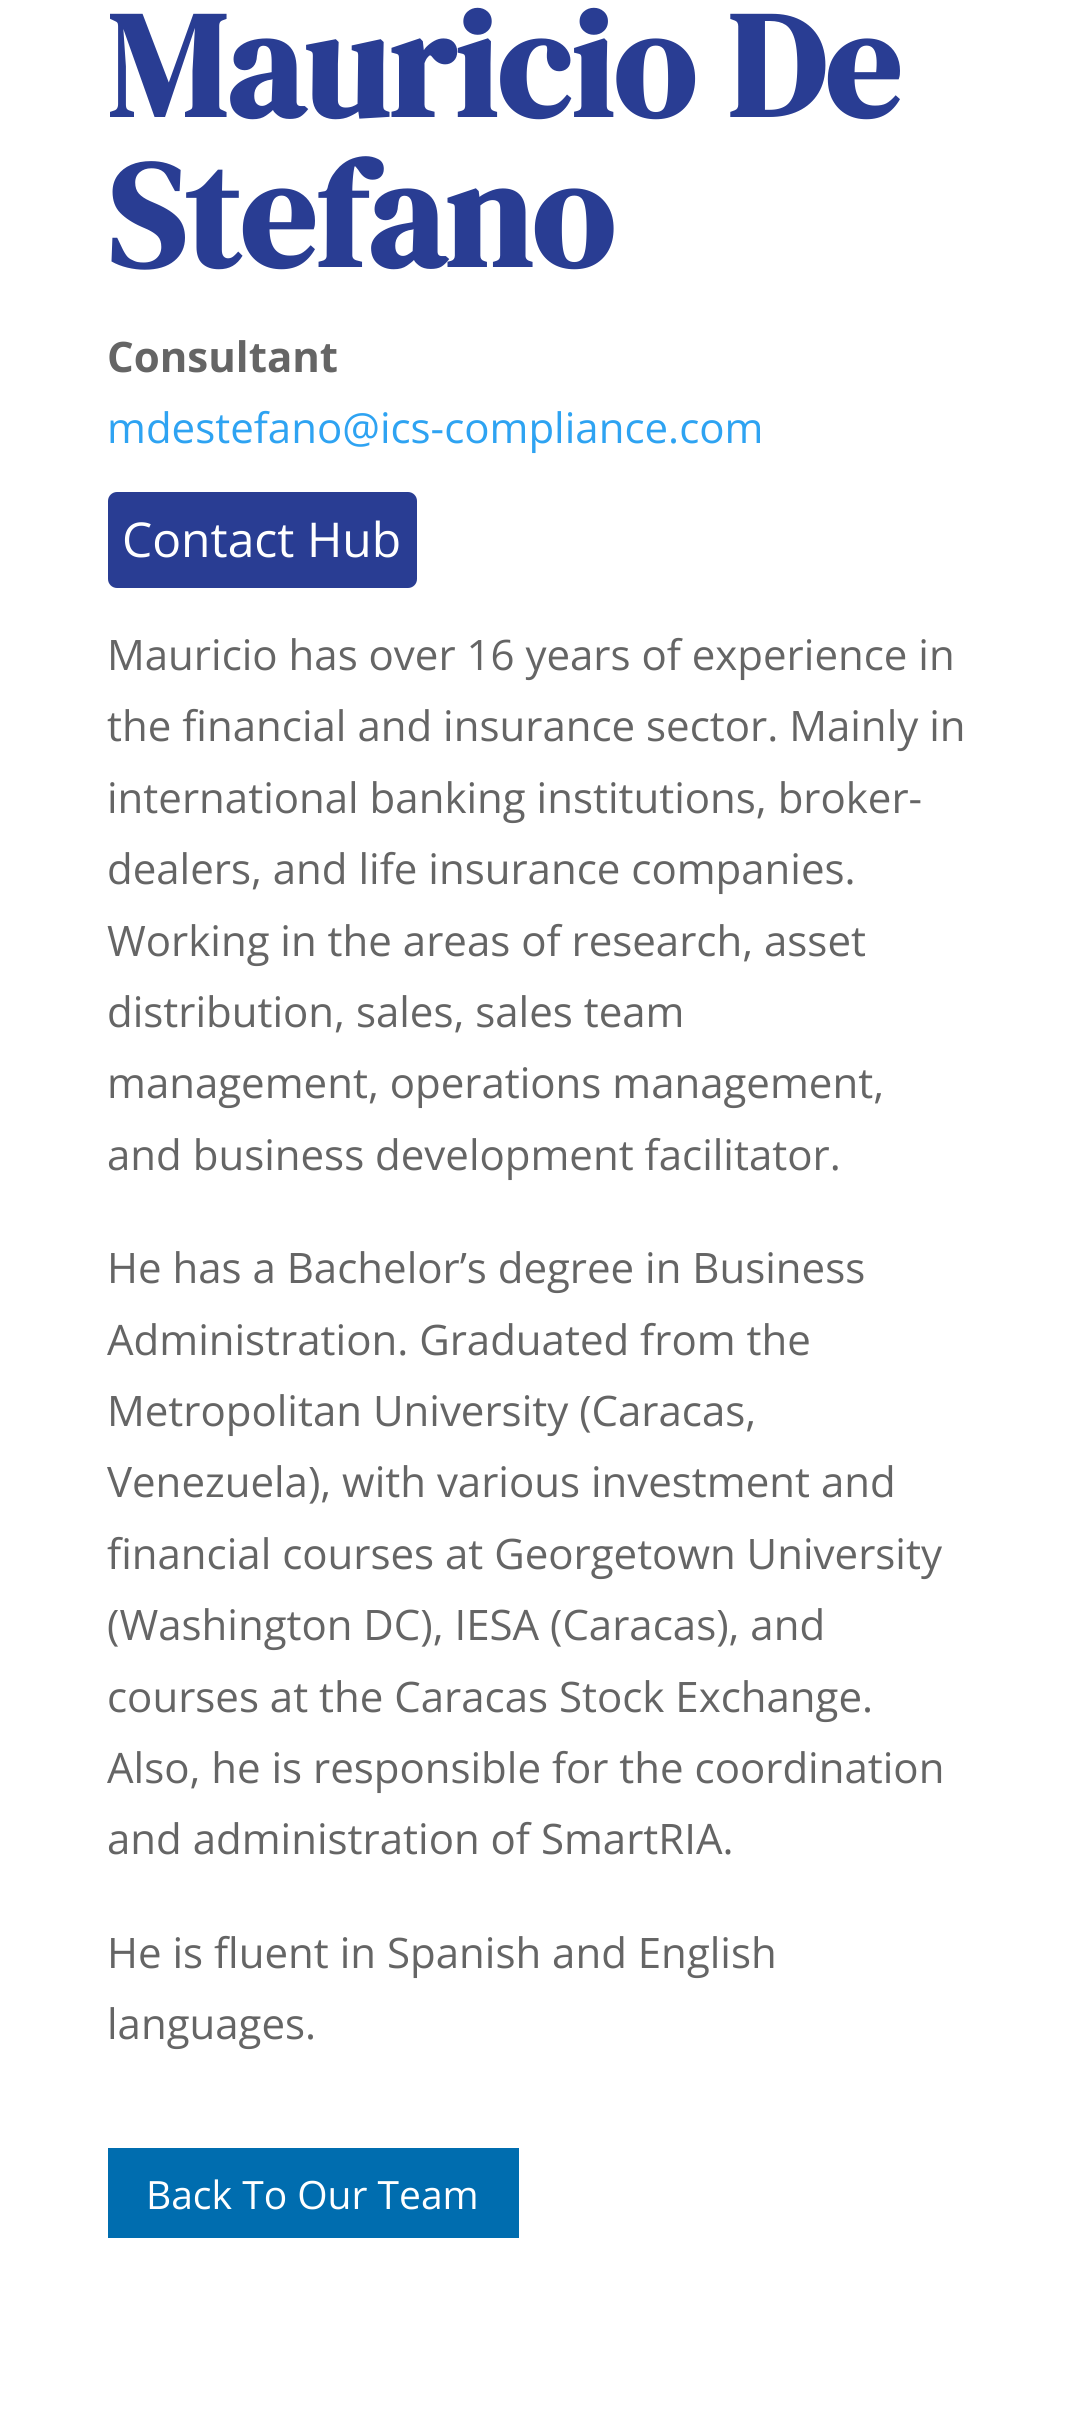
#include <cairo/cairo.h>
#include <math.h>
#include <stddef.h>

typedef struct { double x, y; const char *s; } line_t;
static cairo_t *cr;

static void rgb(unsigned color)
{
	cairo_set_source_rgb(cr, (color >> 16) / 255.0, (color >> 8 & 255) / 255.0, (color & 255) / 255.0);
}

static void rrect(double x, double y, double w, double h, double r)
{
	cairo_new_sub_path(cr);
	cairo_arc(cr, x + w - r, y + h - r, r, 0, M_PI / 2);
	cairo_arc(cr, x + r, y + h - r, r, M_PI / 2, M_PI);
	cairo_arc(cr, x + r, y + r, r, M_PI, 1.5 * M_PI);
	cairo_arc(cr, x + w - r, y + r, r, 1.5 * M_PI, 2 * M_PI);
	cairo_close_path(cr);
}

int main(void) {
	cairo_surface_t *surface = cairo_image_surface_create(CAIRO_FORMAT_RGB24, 1072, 2426);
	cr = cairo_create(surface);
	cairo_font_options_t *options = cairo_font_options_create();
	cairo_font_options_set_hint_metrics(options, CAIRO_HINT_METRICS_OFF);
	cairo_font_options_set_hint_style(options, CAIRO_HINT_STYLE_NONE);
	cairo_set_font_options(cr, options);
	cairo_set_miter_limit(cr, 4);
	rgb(0xffffff);
	cairo_paint(cr);
	rgb(0x293d93);
	rrect(108, 492, 309, 96, 9);
	cairo_fill(cr);
	rgb(0x006daf);
	cairo_rectangle(cr, 108, 2148, 411, 90);
	cairo_fill(cr);
	cairo_select_font_face(cr, "DM Serif Display", CAIRO_FONT_SLANT_NORMAL, CAIRO_FONT_WEIGHT_BOLD);
	cairo_set_font_size(cr, 150);
	rgb(0x293d93);
	cairo_move_to(cr, 107, 117);
	cairo_show_text(cr, "Mauricio De");
	cairo_move_to(cr, 107, 267);
	cairo_show_text(cr, "Stefano");
	cairo_select_font_face(cr, "Open Sans", CAIRO_FONT_SLANT_NORMAL, CAIRO_FONT_WEIGHT_BOLD);
	cairo_set_font_size(cr, 42);
	rgb(0x656565);
	cairo_move_to(cr, 107, 372);
	cairo_show_text(cr, "Consultant");
	cairo_select_font_face(cr, "Open Sans", CAIRO_FONT_SLANT_NORMAL, CAIRO_FONT_WEIGHT_NORMAL);
	rgb(0x2ea3f2);
	cairo_move_to(cr, 107, 443);
	cairo_show_text(cr, "mdestefano@ics-compliance.com");
	cairo_set_font_size(cr, 48);
	rgb(0xffffff);
	cairo_move_to(cr, 122, 557);
	cairo_show_text(cr, "Contact Hub");
	cairo_set_font_size(cr, 42);
	rgb(0x656565);
	{
		static const line_t items[] = {
			{107, 670, "Mauricio has over 16 years of experience in"},
			{107, 741, "the financial and insurance sector. Mainly in"},
			{107, 813, "international banking institutions, broker-"},
			{107, 884, "dealers, and life insurance companies."},
			{107, 956, "Working in the areas of research, asset"},
			{107, 1027, "distribution, sales, sales team"},
			{107, 1098, "management, operations management,"},
			{107, 1170, "and business development facilitator."},
			{107, 1283, "He has a Bachelor’s degree in Business"},
			{107, 1355, "Administration. Graduated from the"},
			{107, 1426, "Metropolitan University (Caracas,"},
			{107, 1497, "Venezuela), with various investment and"},
			{107, 1569, "financial courses at Georgetown University"},
			{107, 1640, "(Washington DC), IESA (Caracas), and"},
			{107, 1712, "courses at the Caracas Stock Exchange."},
			{107, 1783, "Also, he is responsible for the coordination"},
			{107, 1854, "and administration of SmartRIA."},
			{107, 1968, "He is fluent in Spanish and English"},
			{107, 2039, "languages."},
		};
		for (size_t i = 0; i < sizeof items / sizeof *items; i++) {
			cairo_move_to(cr, items[i].x, items[i].y);
			cairo_show_text(cr, items[i].s);
		}
	}
	cairo_set_font_size(cr, 39);
	rgb(0xffffff);
	cairo_move_to(cr, 146, 2209);
	cairo_show_text(cr, "Back To Our Team");
	cairo_surface_write_to_png(surface, "page.png");
	cairo_font_options_destroy(options);
	cairo_destroy(cr);
	cairo_surface_destroy(surface);
	return 0;
}
